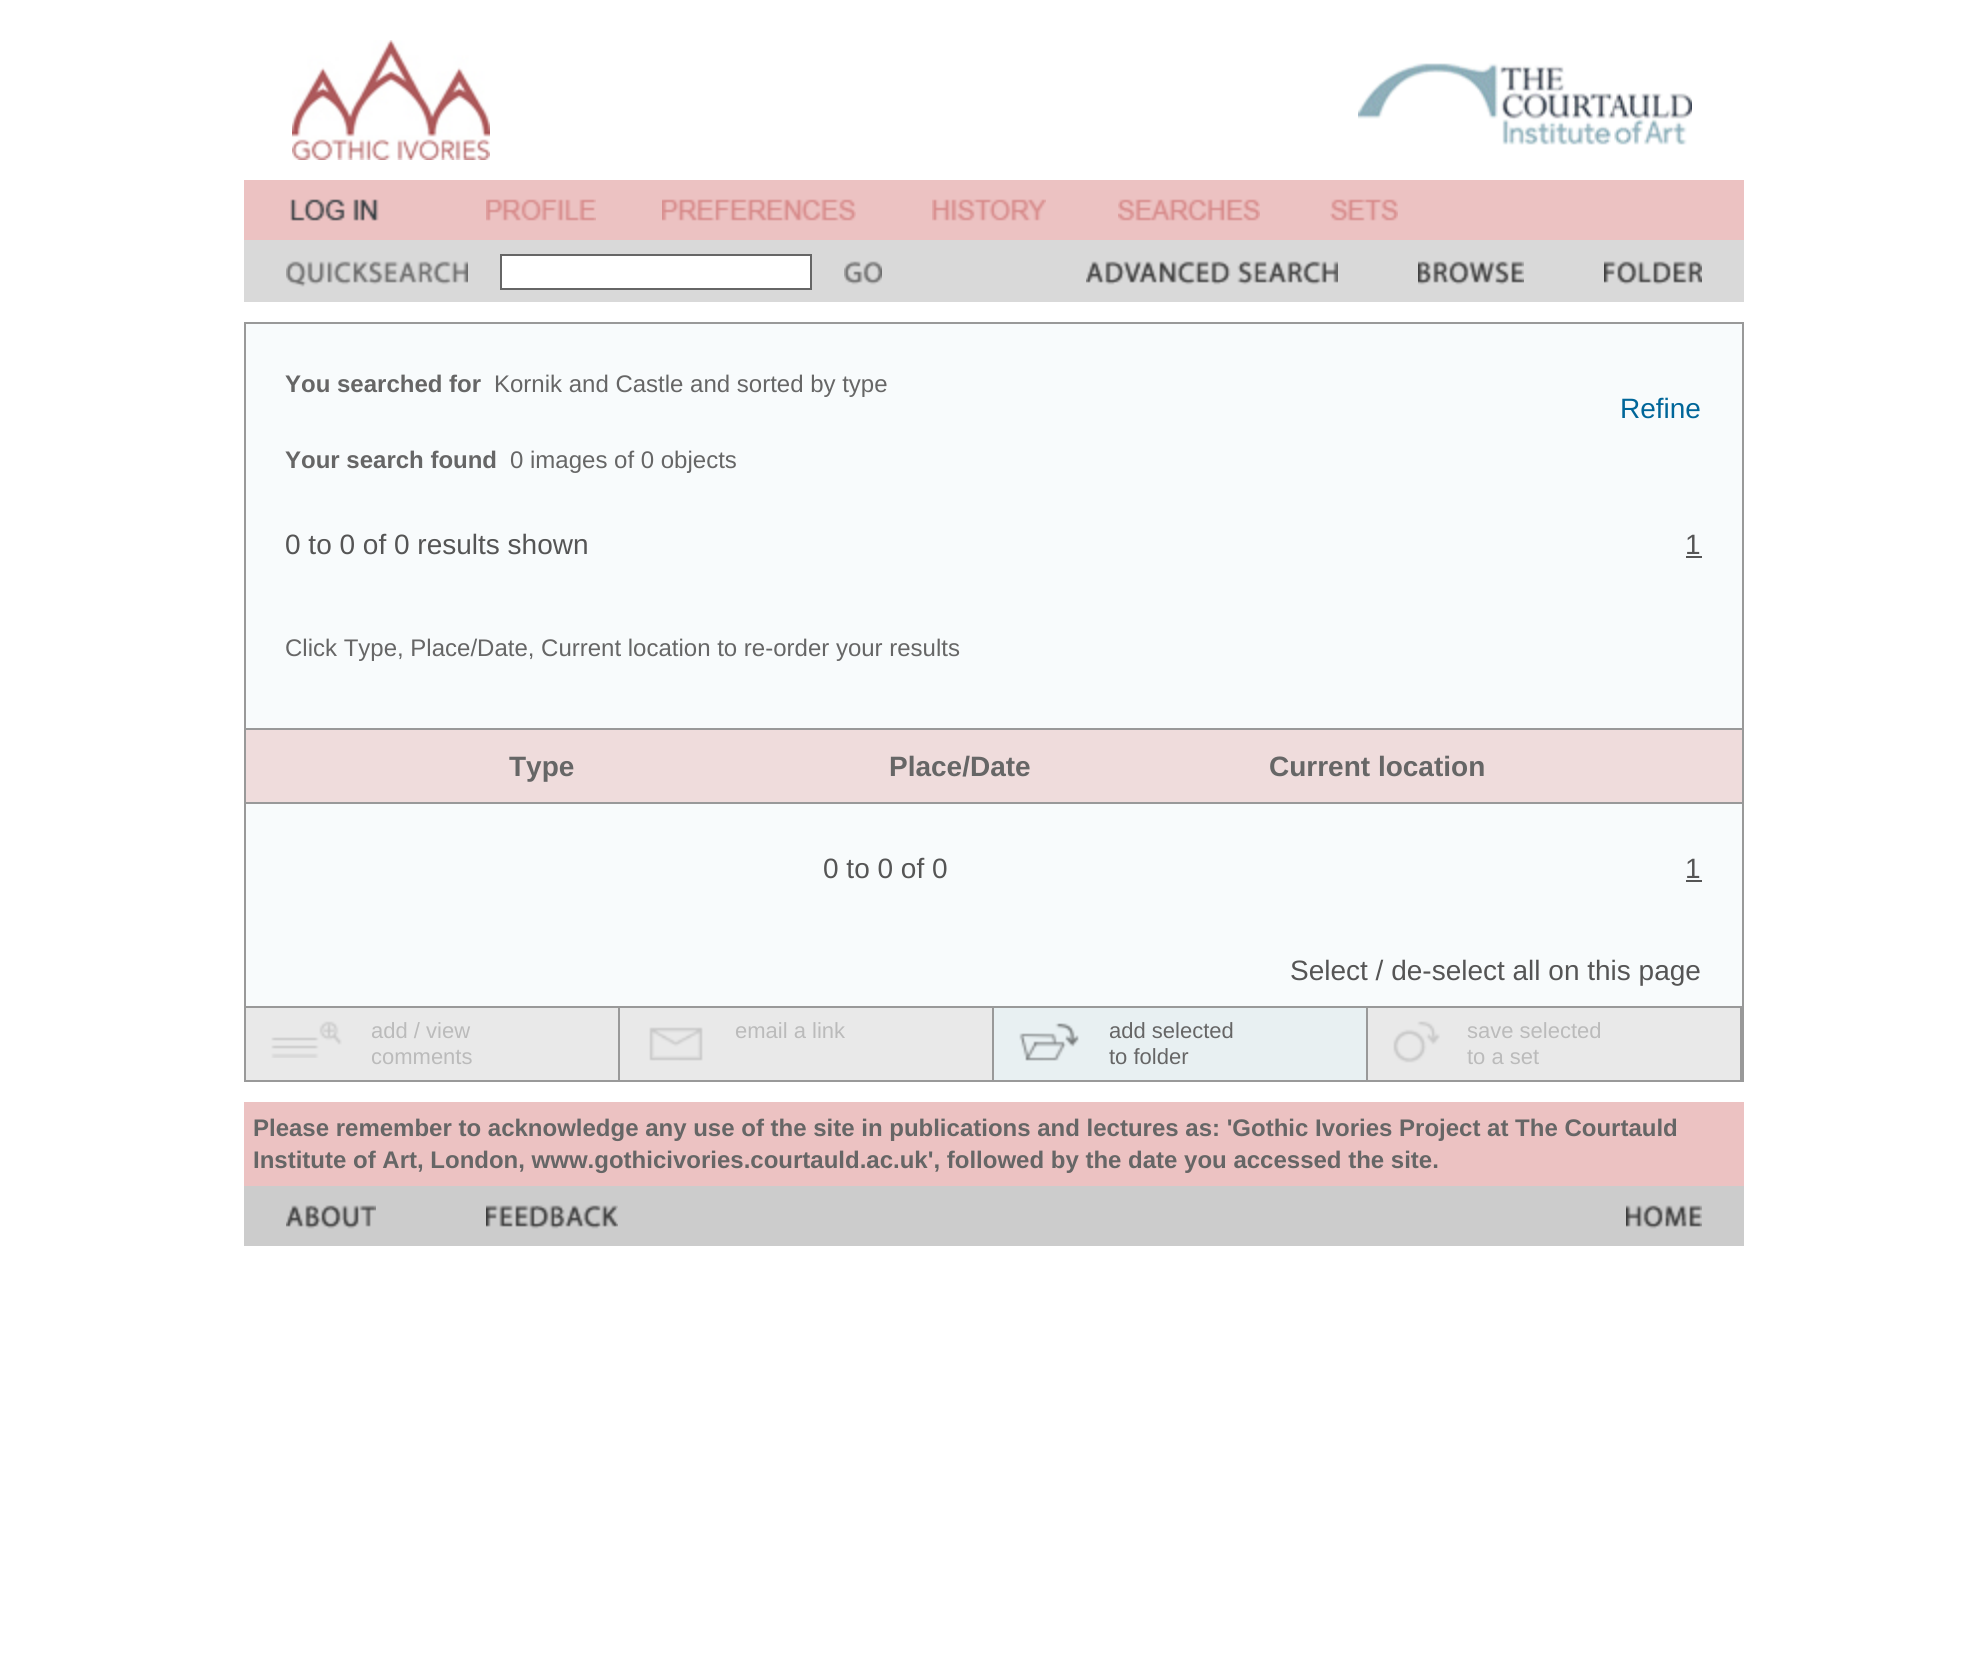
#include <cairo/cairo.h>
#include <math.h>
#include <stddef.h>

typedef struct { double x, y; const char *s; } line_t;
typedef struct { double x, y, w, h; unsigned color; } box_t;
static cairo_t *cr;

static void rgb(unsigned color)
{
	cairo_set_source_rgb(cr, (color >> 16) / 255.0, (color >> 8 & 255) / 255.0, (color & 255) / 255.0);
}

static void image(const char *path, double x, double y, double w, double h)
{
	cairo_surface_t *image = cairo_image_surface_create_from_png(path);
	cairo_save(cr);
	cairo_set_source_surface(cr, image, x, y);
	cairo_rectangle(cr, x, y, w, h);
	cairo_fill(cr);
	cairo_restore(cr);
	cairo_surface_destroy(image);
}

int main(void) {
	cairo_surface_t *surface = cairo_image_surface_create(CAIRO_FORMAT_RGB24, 1985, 1679);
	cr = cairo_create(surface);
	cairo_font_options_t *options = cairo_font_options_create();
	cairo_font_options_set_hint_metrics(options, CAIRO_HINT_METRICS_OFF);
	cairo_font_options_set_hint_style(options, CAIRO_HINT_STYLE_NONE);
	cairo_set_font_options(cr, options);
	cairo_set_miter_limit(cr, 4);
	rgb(0xffffff);
	cairo_paint(cr);
	image("img/1.png", 292, 40, 198, 120);
	image("img/2.png", 1358, 63, 334, 82);
	rgb(0xecc2c2);
	cairo_rectangle(cr, 244, 180, 1500, 60);
	cairo_fill(cr);
	image("img/3.png", 290, 199, 89, 22);
	image("img/4.png", 486, 199, 110, 22);
	image("img/5.png", 662, 199, 194, 22);
	image("img/6.png", 932, 199, 114, 22);
	image("img/7.png", 1118, 199, 142, 22);
	image("img/8.png", 1330, 199, 68, 22);
	rgb(0xd9d9d9);
	cairo_rectangle(cr, 244, 240, 1500, 62);
	cairo_fill(cr);
	image("img/9.png", 286, 261, 182, 26);
	rgb(0xffffff);
	cairo_rectangle(cr, 501, 255, 310, 34);
	cairo_fill_preserve(cr);
	rgb(0x666666);
	cairo_stroke(cr);
	image("img/10.png", 844, 261, 38, 24);
	image("img/11.png", 1086, 261, 252, 24);
	image("img/12.png", 1418, 261, 106, 24);
	image("img/13.png", 1604, 261, 98, 24);
	{
		static const box_t items[] = {
			{244, 322, 1500, 760, 0x999999},
			{246, 324, 1496, 404, 0xf8fbfc},
			{1686, 556, 16, 2, 0x555555},
			{246, 730, 1496, 72, 0xefdcdc},
			{246, 804, 1496, 202, 0xf8fbfc},
			{1686, 880, 16, 2, 0x555555},
			{246, 1008, 372, 72, 0xe9e9e9},
		};
		for (size_t i = 0; i < sizeof items / sizeof *items; i++) {
			rgb(items[i].color);
			cairo_rectangle(cr, items[i].x, items[i].y, items[i].w, items[i].h);
			cairo_fill(cr);
		}
	}
	image("img/14.png", 271, 1021, 71, 37);
	cairo_rectangle(cr, 620, 1008, 372, 72);
	cairo_fill(cr);
	image("img/15.png", 649, 1027, 54, 34);
	rgb(0xe8f0f2);
	cairo_rectangle(cr, 994, 1008, 372, 72);
	cairo_fill(cr);
	image("img/16.png", 1019, 1023, 60, 38);
	rgb(0xe9e9e9);
	cairo_rectangle(cr, 1368, 1008, 372, 72);
	cairo_fill(cr);
	image("img/17.png", 1393, 1021, 47, 42);
	rgb(0xecc2c2);
	cairo_rectangle(cr, 244, 1102, 1500, 84);
	cairo_fill(cr);
	rgb(0xcccccc);
	cairo_rectangle(cr, 244, 1186, 1500, 60);
	cairo_fill(cr);
	image("img/18.png", 286, 1205, 90, 24);
	image("img/19.png", 486, 1205, 132, 24);
	image("img/20.png", 1626, 1205, 76, 24);
	cairo_select_font_face(cr, "Liberation Sans", CAIRO_FONT_SLANT_NORMAL, CAIRO_FONT_WEIGHT_BOLD);
	cairo_set_font_size(cr, 24);
	rgb(0x666666);
	cairo_move_to(cr, 285, 392);
	cairo_show_text(cr, "You searched for");
	cairo_select_font_face(cr, "Liberation Sans", CAIRO_FONT_SLANT_NORMAL, CAIRO_FONT_WEIGHT_NORMAL);
	cairo_move_to(cr, 494, 392);
	cairo_show_text(cr, "Kornik and Castle and sorted by type");
	cairo_select_font_face(cr, "Liberation Sans", CAIRO_FONT_SLANT_NORMAL, CAIRO_FONT_WEIGHT_BOLD);
	cairo_move_to(cr, 285, 468);
	cairo_show_text(cr, "Your search found");
	cairo_select_font_face(cr, "Liberation Sans", CAIRO_FONT_SLANT_NORMAL, CAIRO_FONT_WEIGHT_NORMAL);
	cairo_move_to(cr, 510, 468);
	cairo_show_text(cr, "0 images of 0 objects");
	cairo_set_font_size(cr, 28);
	rgb(0x006699);
	cairo_move_to(cr, 1620, 418);
	cairo_show_text(cr, "Refine");
	rgb(0x555555);
	cairo_move_to(cr, 285, 554);
	cairo_show_text(cr, "0 to 0 of 0 results shown");
	cairo_move_to(cr, 1685, 554);
	cairo_show_text(cr, "1");
	cairo_set_font_size(cr, 24);
	rgb(0x666666);
	cairo_move_to(cr, 285, 656);
	cairo_show_text(cr, "Click Type, Place/Date, Current location to re-order your results");
	cairo_select_font_face(cr, "Liberation Sans", CAIRO_FONT_SLANT_NORMAL, CAIRO_FONT_WEIGHT_BOLD);
	cairo_set_font_size(cr, 28);
	{
		static const line_t items[] = {
			{509, 776, "Type"},
			{889, 776, "Place/Date"},
			{1269, 776, "Current location"},
		};
		for (size_t i = 0; i < sizeof items / sizeof *items; i++) {
			cairo_move_to(cr, items[i].x, items[i].y);
			cairo_show_text(cr, items[i].s);
		}
	}
	cairo_select_font_face(cr, "Liberation Sans", CAIRO_FONT_SLANT_NORMAL, CAIRO_FONT_WEIGHT_NORMAL);
	rgb(0x555555);
	{
		static const line_t items[] = {
			{823, 878, "0 to 0 of 0"},
			{1685, 878, "1"},
			{1290, 980, "Select / de-select all on this page"},
		};
		for (size_t i = 0; i < sizeof items / sizeof *items; i++) {
			cairo_move_to(cr, items[i].x, items[i].y);
			cairo_show_text(cr, items[i].s);
		}
	}
	cairo_set_font_size(cr, 22);
	rgb(0xbbbbbb);
	{
		static const line_t items[] = {
			{371, 1038, "add / view"},
			{371, 1064, "comments"},
			{735, 1038, "email a link"},
		};
		for (size_t i = 0; i < sizeof items / sizeof *items; i++) {
			cairo_move_to(cr, items[i].x, items[i].y);
			cairo_show_text(cr, items[i].s);
		}
	}
	rgb(0x666666);
	cairo_move_to(cr, 1109, 1038);
	cairo_show_text(cr, "add selected");
	cairo_move_to(cr, 1109, 1064);
	cairo_show_text(cr, "to folder");
	rgb(0xbbbbbb);
	cairo_move_to(cr, 1467, 1038);
	cairo_show_text(cr, "save selected");
	cairo_move_to(cr, 1467, 1064);
	cairo_show_text(cr, "to a set");
	cairo_select_font_face(cr, "Liberation Sans", CAIRO_FONT_SLANT_NORMAL, CAIRO_FONT_WEIGHT_BOLD);
	cairo_set_font_size(cr, 24);
	rgb(0x666666);
	cairo_move_to(cr, 253, 1136);
	cairo_show_text(cr, "Please remember to acknowledge any use of the site in publications and lectures as: 'Gothic Ivories Project at The Courtauld");
	cairo_move_to(cr, 253, 1168);
	cairo_show_text(cr, "Institute of Art, London, www.gothicivories.courtauld.ac.uk', followed by the date you accessed the site.");
	cairo_surface_write_to_png(surface, "page.png");
	cairo_font_options_destroy(options);
	cairo_destroy(cr);
	cairo_surface_destroy(surface);
	return 0;
}
